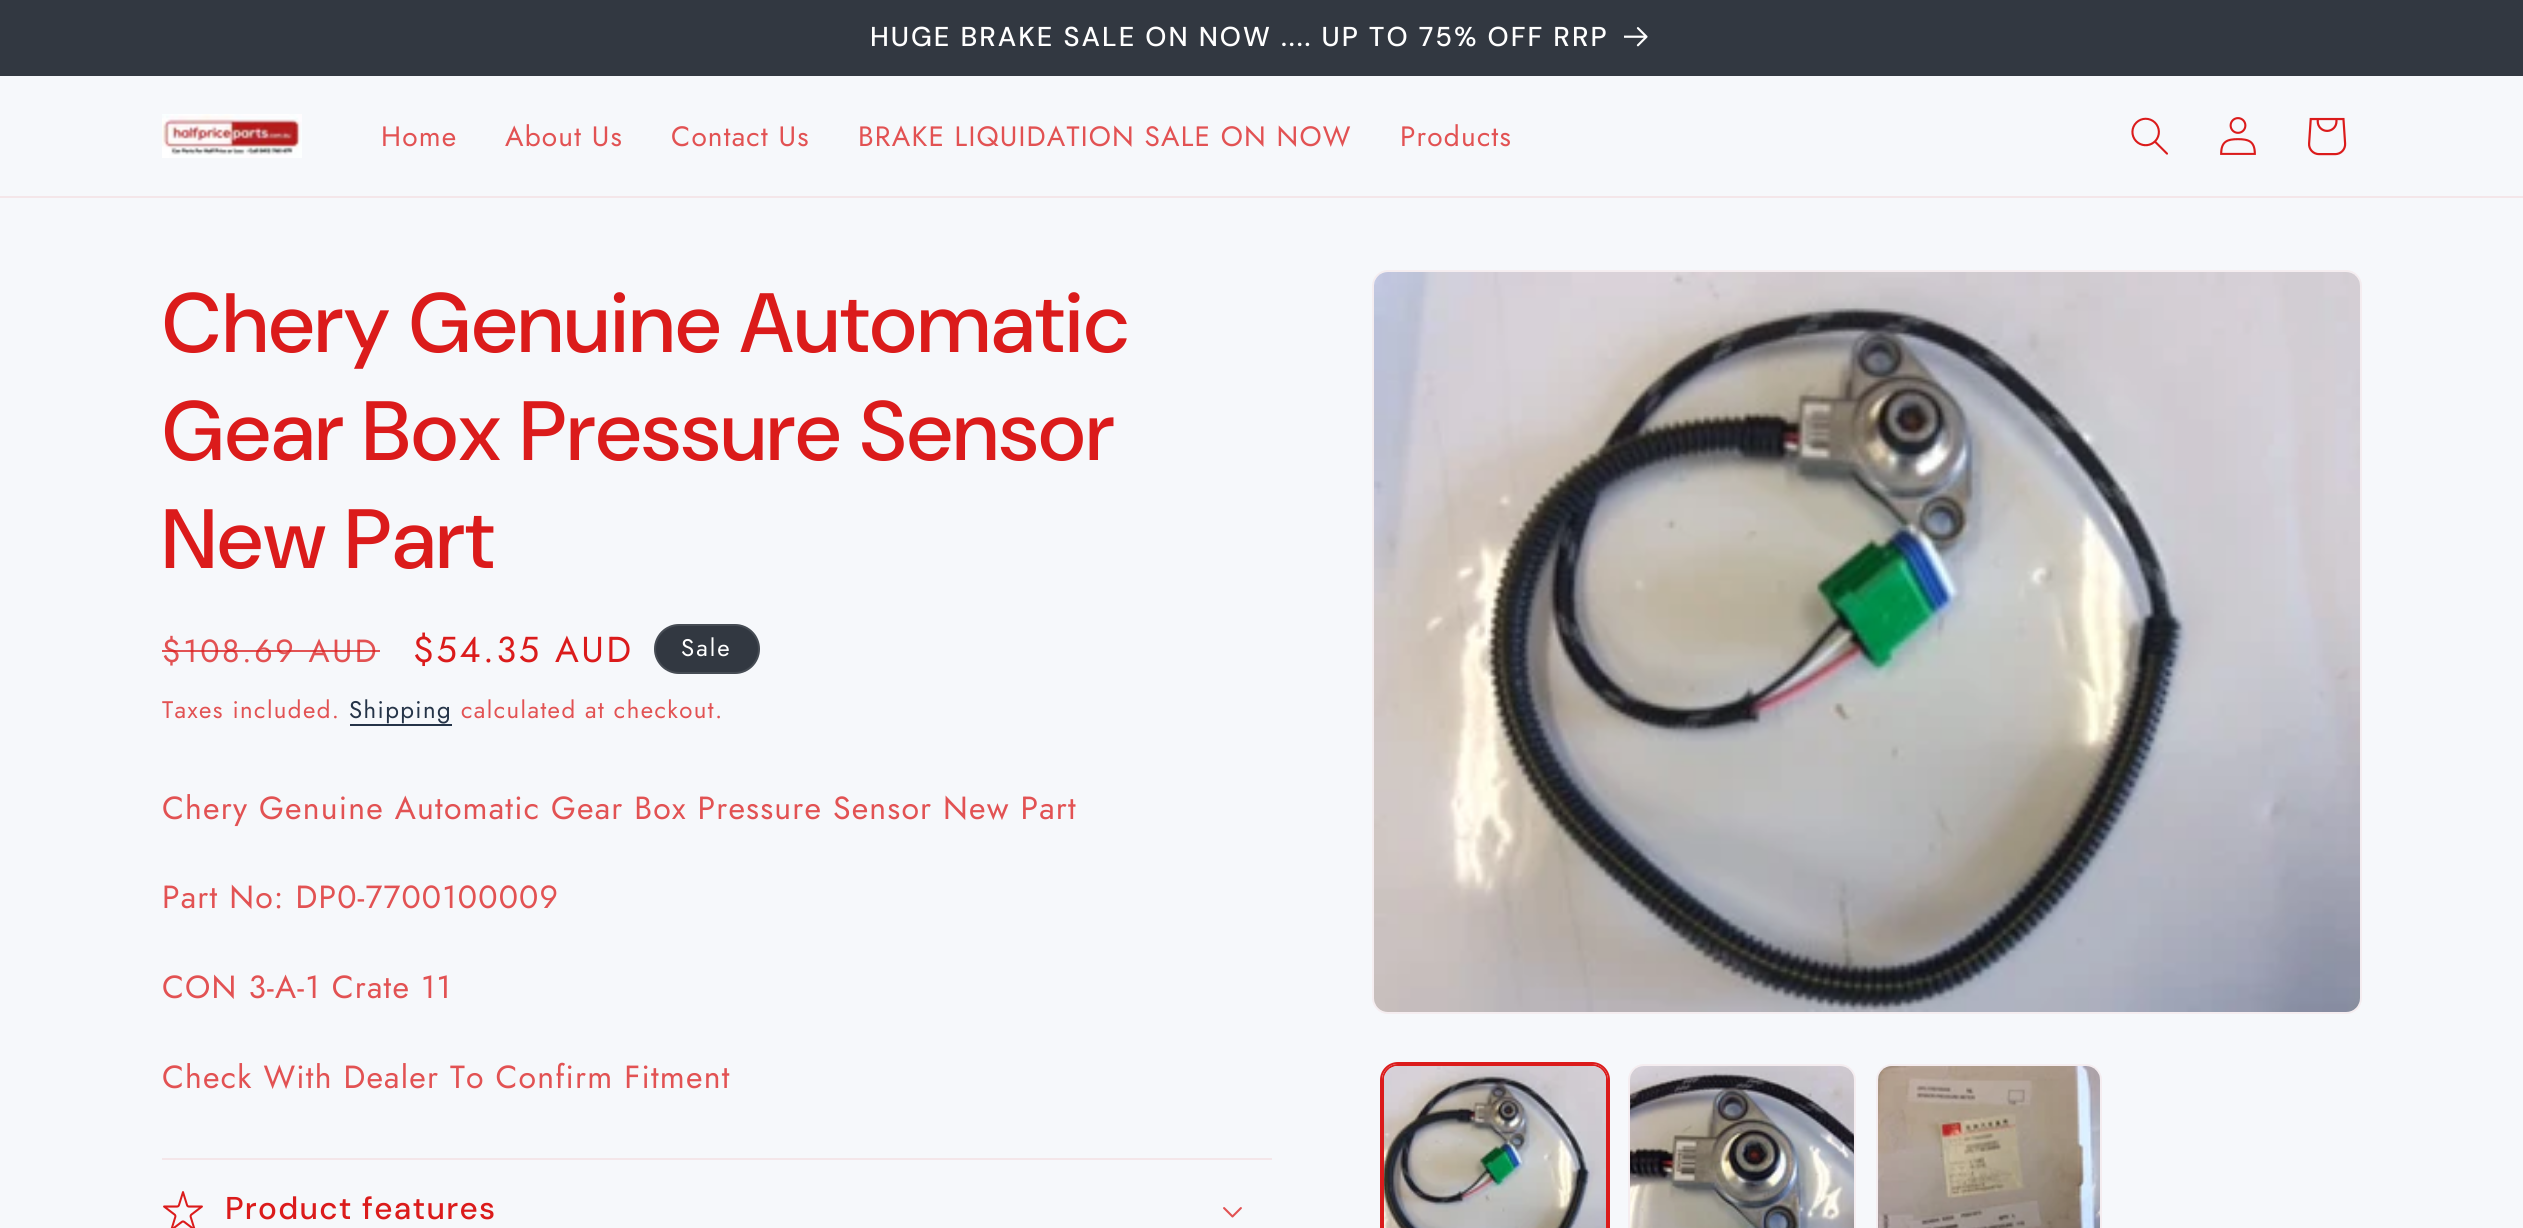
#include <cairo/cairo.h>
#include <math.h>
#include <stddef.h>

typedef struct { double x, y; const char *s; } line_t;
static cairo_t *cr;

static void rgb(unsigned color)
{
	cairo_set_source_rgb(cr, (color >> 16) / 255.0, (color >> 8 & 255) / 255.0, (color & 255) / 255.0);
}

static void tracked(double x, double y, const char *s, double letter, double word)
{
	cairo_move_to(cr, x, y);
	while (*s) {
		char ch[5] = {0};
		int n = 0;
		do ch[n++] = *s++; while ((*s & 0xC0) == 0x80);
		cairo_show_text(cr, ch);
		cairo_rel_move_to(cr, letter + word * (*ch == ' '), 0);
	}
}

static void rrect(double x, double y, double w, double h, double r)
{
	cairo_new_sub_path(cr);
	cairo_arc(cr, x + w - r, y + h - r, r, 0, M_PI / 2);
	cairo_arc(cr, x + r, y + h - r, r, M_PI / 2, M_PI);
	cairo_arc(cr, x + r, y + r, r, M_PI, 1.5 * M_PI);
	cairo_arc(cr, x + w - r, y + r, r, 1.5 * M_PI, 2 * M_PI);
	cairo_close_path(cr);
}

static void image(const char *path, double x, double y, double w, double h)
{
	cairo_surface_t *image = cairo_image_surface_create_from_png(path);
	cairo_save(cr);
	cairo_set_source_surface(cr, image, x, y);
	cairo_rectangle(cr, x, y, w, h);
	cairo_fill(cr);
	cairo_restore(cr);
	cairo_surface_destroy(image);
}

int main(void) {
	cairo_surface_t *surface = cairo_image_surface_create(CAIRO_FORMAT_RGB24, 2523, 1228);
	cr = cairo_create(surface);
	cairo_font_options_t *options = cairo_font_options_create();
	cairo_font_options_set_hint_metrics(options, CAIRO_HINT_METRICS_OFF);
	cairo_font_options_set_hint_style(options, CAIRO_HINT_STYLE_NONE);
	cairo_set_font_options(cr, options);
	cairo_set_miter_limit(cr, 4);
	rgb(0xf6f8fb);
	cairo_paint(cr);
	rgb(0x323841);
	cairo_rectangle(cr, 0, 0, 2523, 76);
	cairo_fill(cr);
	image("img/1.png", 1624, 27, 24, 20);
	rgb(0xf4e6e9);
	cairo_rectangle(cr, 0, 196, 2523, 2);
	cairo_fill(cr);
	image("img/2.png", 162, 114, 140, 44);
	image("img/3.png", 2131, 117, 37, 38);
	image("img/4.png", 2220, 117, 36, 38);
	image("img/5.png", 2308, 117, 39, 39);
	rgb(0x323841);
	rrect(654, 624, 106, 50, 25);
	cairo_fill(cr);
	rrect(655, 625, 104, 48, 24);
	cairo_set_source_rgba(cr, 1, 1, 1, 0.1);
	cairo_stroke(cr);
	rgb(0x253448);
	cairo_rectangle(cr, 350, 724, 102, 2);
	cairo_fill(cr);
	rgb(0xf4e6e9);
	cairo_rectangle(cr, 162, 1158, 1110, 2);
	cairo_fill(cr);
	image("img/6.png", 163, 1191, 40, 37);
	image("img/7.png", 1223, 1207, 19, 11);
	rrect(1373, 271, 988, 742, 15);
	rgb(0xf5edf0);
	cairo_stroke(cr);
	image("img/8.png", 1374, 272, 986, 740);
	rrect(1381, 1063, 228, 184, 17);
	rgb(0xdb1b1b);
	cairo_stroke(cr);
	rrect(1383, 1065, 224, 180, 15);
	cairo_stroke(cr);
	image("img/9.png", 1384, 1066, 222, 162);
	rrect(1629, 1065, 226, 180, 15);
	rgb(0xf5edf0);
	cairo_stroke(cr);
	image("img/10.png", 1630, 1066, 224, 162);
	rrect(1877, 1065, 224, 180, 15);
	cairo_stroke(cr);
	image("img/11.png", 1878, 1066, 222, 162);
	cairo_select_font_face(cr, "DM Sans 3 Medium", CAIRO_FONT_SLANT_NORMAL, CAIRO_FONT_WEIGHT_NORMAL);
	cairo_set_font_size(cr, 27.3);
	rgb(0xffffff);
	tracked(870, 46, "HUGE BRAKE SALE ON NOW .... UP TO 75% OFF RRP", 2, 0);
	cairo_select_font_face(cr, "Jost", CAIRO_FONT_SLANT_NORMAL, CAIRO_FONT_WEIGHT_NORMAL);
	cairo_set_font_size(cr, 28);
	rgb(0xe25253);
	{
		static const line_t items[] = {
			{381, 146, "Home"},
			{505, 146, "About Us"},
			{671, 146, "Contact Us"},
			{858, 146, "BRAKE LIQUIDATION SALE ON NOW"},
			{1400, 146, "Products"},
		};
		for (size_t i = 0; i < sizeof items / sizeof *items; i++) {
			tracked(items[i].x, items[i].y, items[i].s, 1.2, 0);
		}
	}
	cairo_select_font_face(cr, "DM Sans Medium", CAIRO_FONT_SLANT_NORMAL, CAIRO_FONT_WEIGHT_NORMAL);
	cairo_set_font_size(cr, 84);
	rgb(0xdb1b1b);
	{
		static const line_t items[] = {
			{162, 352, "Chery Genuine Automatic"},
			{162, 460, "Gear Box Pressure Sensor"},
			{162, 568, "New Part"},
		};
		for (size_t i = 0; i < sizeof items / sizeof *items; i++) {
			tracked(items[i].x, items[i].y, items[i].s, 1.25, 0);
		}
	}
	cairo_select_font_face(cr, "Jost", CAIRO_FONT_SLANT_NORMAL, CAIRO_FONT_WEIGHT_NORMAL);
	cairo_set_font_size(cr, 32);
	rgb(0xe25253);
	tracked(162, 662, "$108.69 AUD", 2.6, 0);
	cairo_set_source_rgba(cr, 0.859, 0.106, 0.106, 0.75);
	cairo_rectangle(cr, 162, 650, 218, 2);
	cairo_fill(cr);
	cairo_set_font_size(cr, 36);
	rgb(0xdb1b1b);
	tracked(413, 662, "$54.35 AUD", 2.6, 0);
	cairo_set_font_size(cr, 24);
	rgb(0xffffff);
	tracked(681, 656, "Sale", 2, 0);
	rgb(0xe25253);
	tracked(162, 718, "Taxes included.", 1.4, 0);
	rgb(0x253448);
	tracked(349, 718, "Shipping", 1.4, 0);
	rgb(0xe25253);
	tracked(461, 718, "calculated at checkout.", 1.4, 0);
	cairo_set_font_size(cr, 32);
	{
		static const line_t items[] = {
			{162, 819, "Chery Genuine Automatic Gear Box Pressure Sensor New Part"},
			{162, 908, "Part No: DP0-7700100009"},
			{162, 998, "CON 3-A-1 Crate 11"},
			{162, 1088, "Check With Dealer To Confirm Fitment"},
		};
		for (size_t i = 0; i < sizeof items / sizeof *items; i++) {
			tracked(items[i].x, items[i].y, items[i].s, 1.2, 0);
		}
	}
	cairo_select_font_face(cr, "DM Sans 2 Medium", CAIRO_FONT_SLANT_NORMAL, CAIRO_FONT_WEIGHT_NORMAL);
	cairo_set_font_size(cr, 31.5);
	rgb(0xdb1b1b);
	tracked(225, 1219, "Product features", 1.25, 0);
	cairo_surface_write_to_png(surface, "page.png");
	cairo_font_options_destroy(options);
	cairo_destroy(cr);
	cairo_surface_destroy(surface);
	return 0;
}
